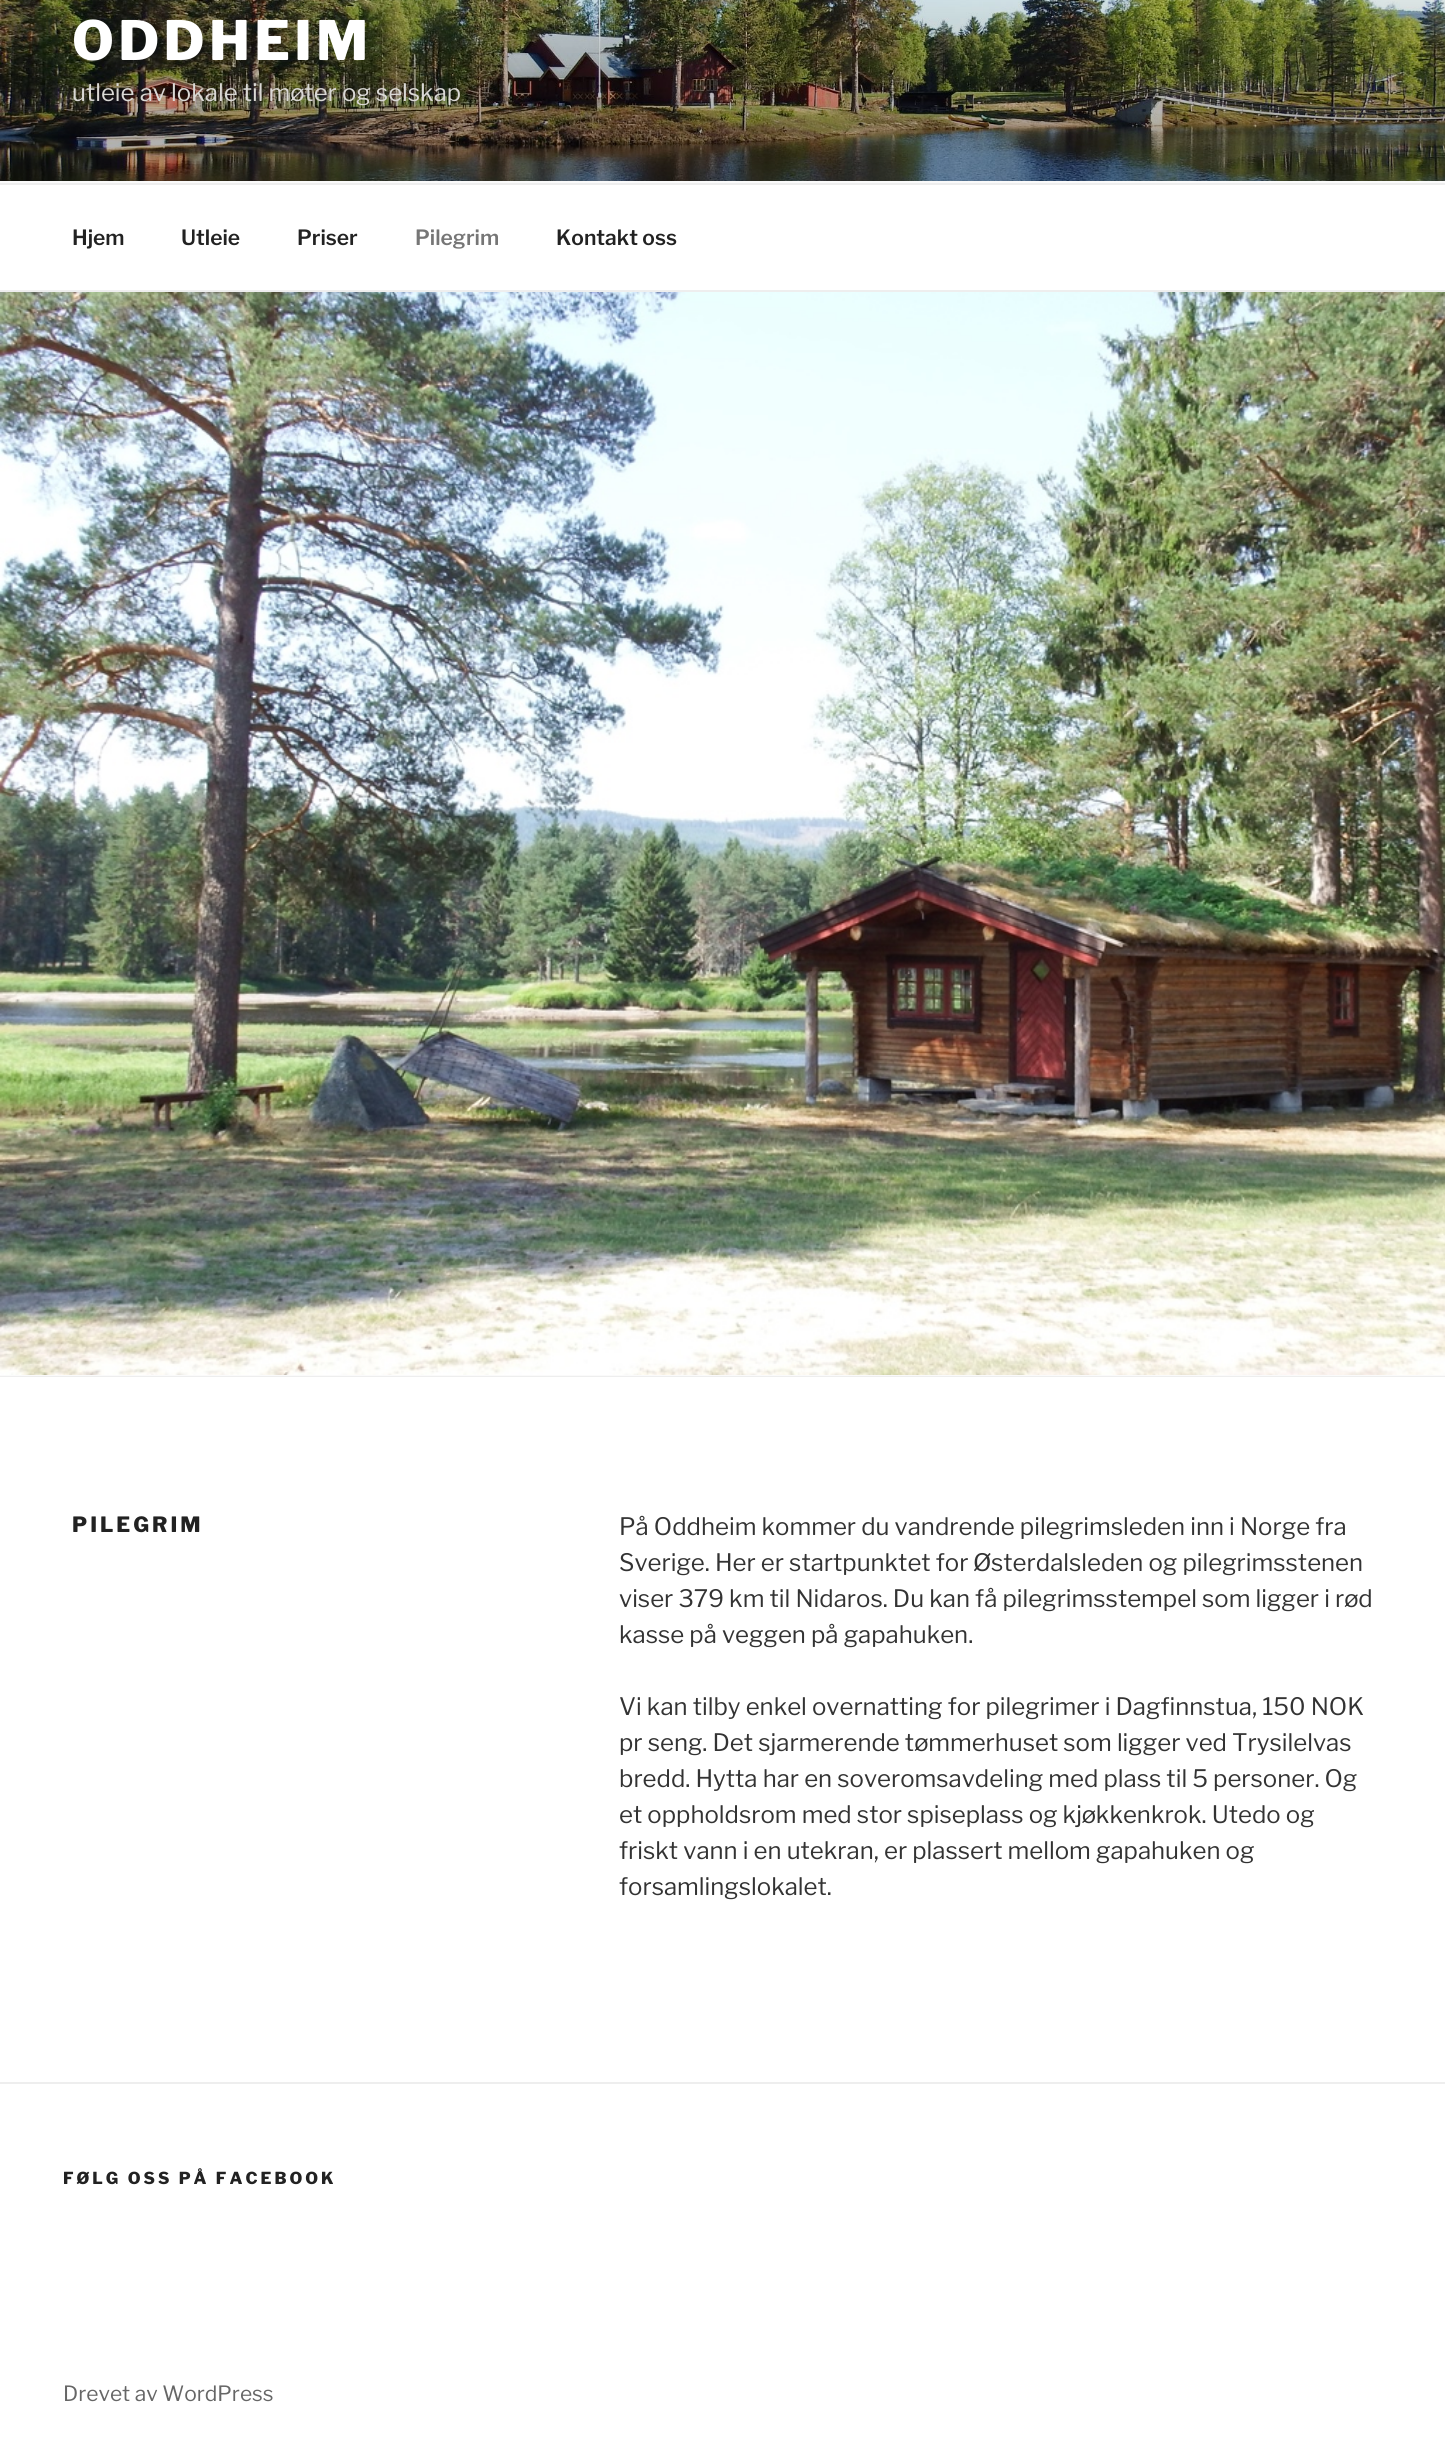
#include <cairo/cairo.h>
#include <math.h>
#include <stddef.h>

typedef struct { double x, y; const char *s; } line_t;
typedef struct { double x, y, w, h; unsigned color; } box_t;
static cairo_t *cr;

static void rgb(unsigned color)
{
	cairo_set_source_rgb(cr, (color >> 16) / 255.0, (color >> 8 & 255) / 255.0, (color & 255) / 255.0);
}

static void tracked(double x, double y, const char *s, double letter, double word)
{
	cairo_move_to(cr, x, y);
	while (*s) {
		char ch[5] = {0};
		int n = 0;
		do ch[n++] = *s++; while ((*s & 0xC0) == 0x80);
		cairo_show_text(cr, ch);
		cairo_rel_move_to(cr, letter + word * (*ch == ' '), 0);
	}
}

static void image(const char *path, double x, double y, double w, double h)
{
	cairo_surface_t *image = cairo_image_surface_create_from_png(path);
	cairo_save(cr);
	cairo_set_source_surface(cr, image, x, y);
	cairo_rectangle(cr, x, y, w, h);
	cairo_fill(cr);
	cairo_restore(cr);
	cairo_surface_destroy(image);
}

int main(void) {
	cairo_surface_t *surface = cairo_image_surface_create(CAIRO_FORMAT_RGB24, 1445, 2463);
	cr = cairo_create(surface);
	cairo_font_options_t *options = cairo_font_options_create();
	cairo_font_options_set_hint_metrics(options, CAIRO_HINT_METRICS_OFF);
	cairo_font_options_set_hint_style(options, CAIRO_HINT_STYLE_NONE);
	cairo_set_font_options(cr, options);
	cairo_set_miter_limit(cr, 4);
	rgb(0xfafafa);
	cairo_paint(cr);
	image("img/1.png", 0, 0, 1445, 181);
	{
		static const box_t items[] = {
			{0, 185, 1445, 105, 0xffffff},
			{0, 183, 1445, 2, 0xeeeeee},
			{0, 290, 1445, 2, 0xeeeeee},
			{0, 1376, 1445, 1, 0xeeeeee},
		};
		for (size_t i = 0; i < sizeof items / sizeof *items; i++) {
			rgb(items[i].color);
			cairo_rectangle(cr, items[i].x, items[i].y, items[i].w, items[i].h);
			cairo_fill(cr);
		}
	}
	image("img/2.png", 0, 292, 1445, 1083);
	rgb(0xffffff);
	cairo_rectangle(cr, 0, 1377, 1445, 1086);
	cairo_fill(cr);
	rgb(0xeeeeee);
	cairo_rectangle(cr, 0, 2082, 1445, 2);
	cairo_fill(cr);
	cairo_select_font_face(cr, "Libre Franklin Thin", CAIRO_FONT_SLANT_NORMAL, CAIRO_FONT_WEIGHT_NORMAL);
	cairo_set_font_size(cr, 54);
	rgb(0xffffff);
	tracked(72, 60, "ODDHEIM", 4.25, 0);
	cairo_select_font_face(cr, "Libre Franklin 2 Thin", CAIRO_FONT_SLANT_NORMAL, CAIRO_FONT_WEIGHT_NORMAL);
	cairo_set_font_size(cr, 24);
	rgb(0xdad8d5);
	cairo_move_to(cr, 72, 101);
	cairo_show_text(cr, "utleie av lokale til møter og selskap");
	cairo_select_font_face(cr, "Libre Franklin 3 Thin", CAIRO_FONT_SLANT_NORMAL, CAIRO_FONT_WEIGHT_NORMAL);
	cairo_set_font_size(cr, 21);
	rgb(0x222222);
	{
		static const line_t items[] = {
			{72, 245, "Hjem"},
			{181, 245, "Utleie"},
			{297, 245, "Priser"},
		};
		for (size_t i = 0; i < sizeof items / sizeof *items; i++) {
			cairo_move_to(cr, items[i].x, items[i].y);
			cairo_show_text(cr, items[i].s);
		}
	}
	rgb(0x767676);
	cairo_move_to(cr, 415, 245);
	cairo_show_text(cr, "Pilegrim");
	rgb(0x222222);
	cairo_move_to(cr, 556, 245);
	cairo_show_text(cr, "Kontakt oss");
	cairo_select_font_face(cr, "Libre Franklin Thin", CAIRO_FONT_SLANT_NORMAL, CAIRO_FONT_WEIGHT_NORMAL);
	tracked(72, 1532, "PILEGRIM", 3, 0);
	cairo_select_font_face(cr, "Libre Franklin 2 Thin", CAIRO_FONT_SLANT_NORMAL, CAIRO_FONT_WEIGHT_NORMAL);
	cairo_set_font_size(cr, 24);
	rgb(0x333333);
	{
		static const line_t items[] = {
			{619, 1535, "På Oddheim kommer du vandrende pilegrimsleden inn i Norge fra"},
			{619, 1571, "Sverige. Her er startpunktet for Østerdalsleden og pilegrimsstenen"},
			{619, 1607, "viser 379 km til Nidaros. Du kan få pilegrimsstempel som ligger i rød"},
			{619, 1643, "kasse på veggen på gapahuken."},
			{619, 1715, "Vi kan tilby enkel overnatting for pilegrimer i Dagfinnstua, 150 NOK"},
			{619, 1751, "pr seng. Det sjarmerende tømmerhuset som ligger ved Trysilelvas"},
			{619, 1787, "bredd. Hytta har en soveromsavdeling med plass til 5 personer. Og"},
			{619, 1823, "et oppholdsrom med stor spiseplass og kjøkkenkrok. Utedo og"},
			{619, 1859, "friskt vann i en utekran, er plassert mellom gapahuken og"},
			{619, 1895, "forsamlingslokalet."},
		};
		for (size_t i = 0; i < sizeof items / sizeof *items; i++) {
			cairo_move_to(cr, items[i].x, items[i].y);
			cairo_show_text(cr, items[i].s);
		}
	}
	cairo_select_font_face(cr, "Libre Franklin Thin", CAIRO_FONT_SLANT_NORMAL, CAIRO_FONT_WEIGHT_NORMAL);
	cairo_set_font_size(cr, 16.5);
	rgb(0x222222);
	tracked(63, 2184, "FØLG OSS PÅ FACEBOOK", 3, 0);
	cairo_select_font_face(cr, "Libre Franklin 2 Thin", CAIRO_FONT_SLANT_NORMAL, CAIRO_FONT_WEIGHT_NORMAL);
	cairo_set_font_size(cr, 21);
	rgb(0x666666);
	cairo_move_to(cr, 63, 2401);
	cairo_show_text(cr, "Drevet av WordPress");
	cairo_surface_write_to_png(surface, "page.png");
	cairo_font_options_destroy(options);
	cairo_destroy(cr);
	cairo_surface_destroy(surface);
	return 0;
}
